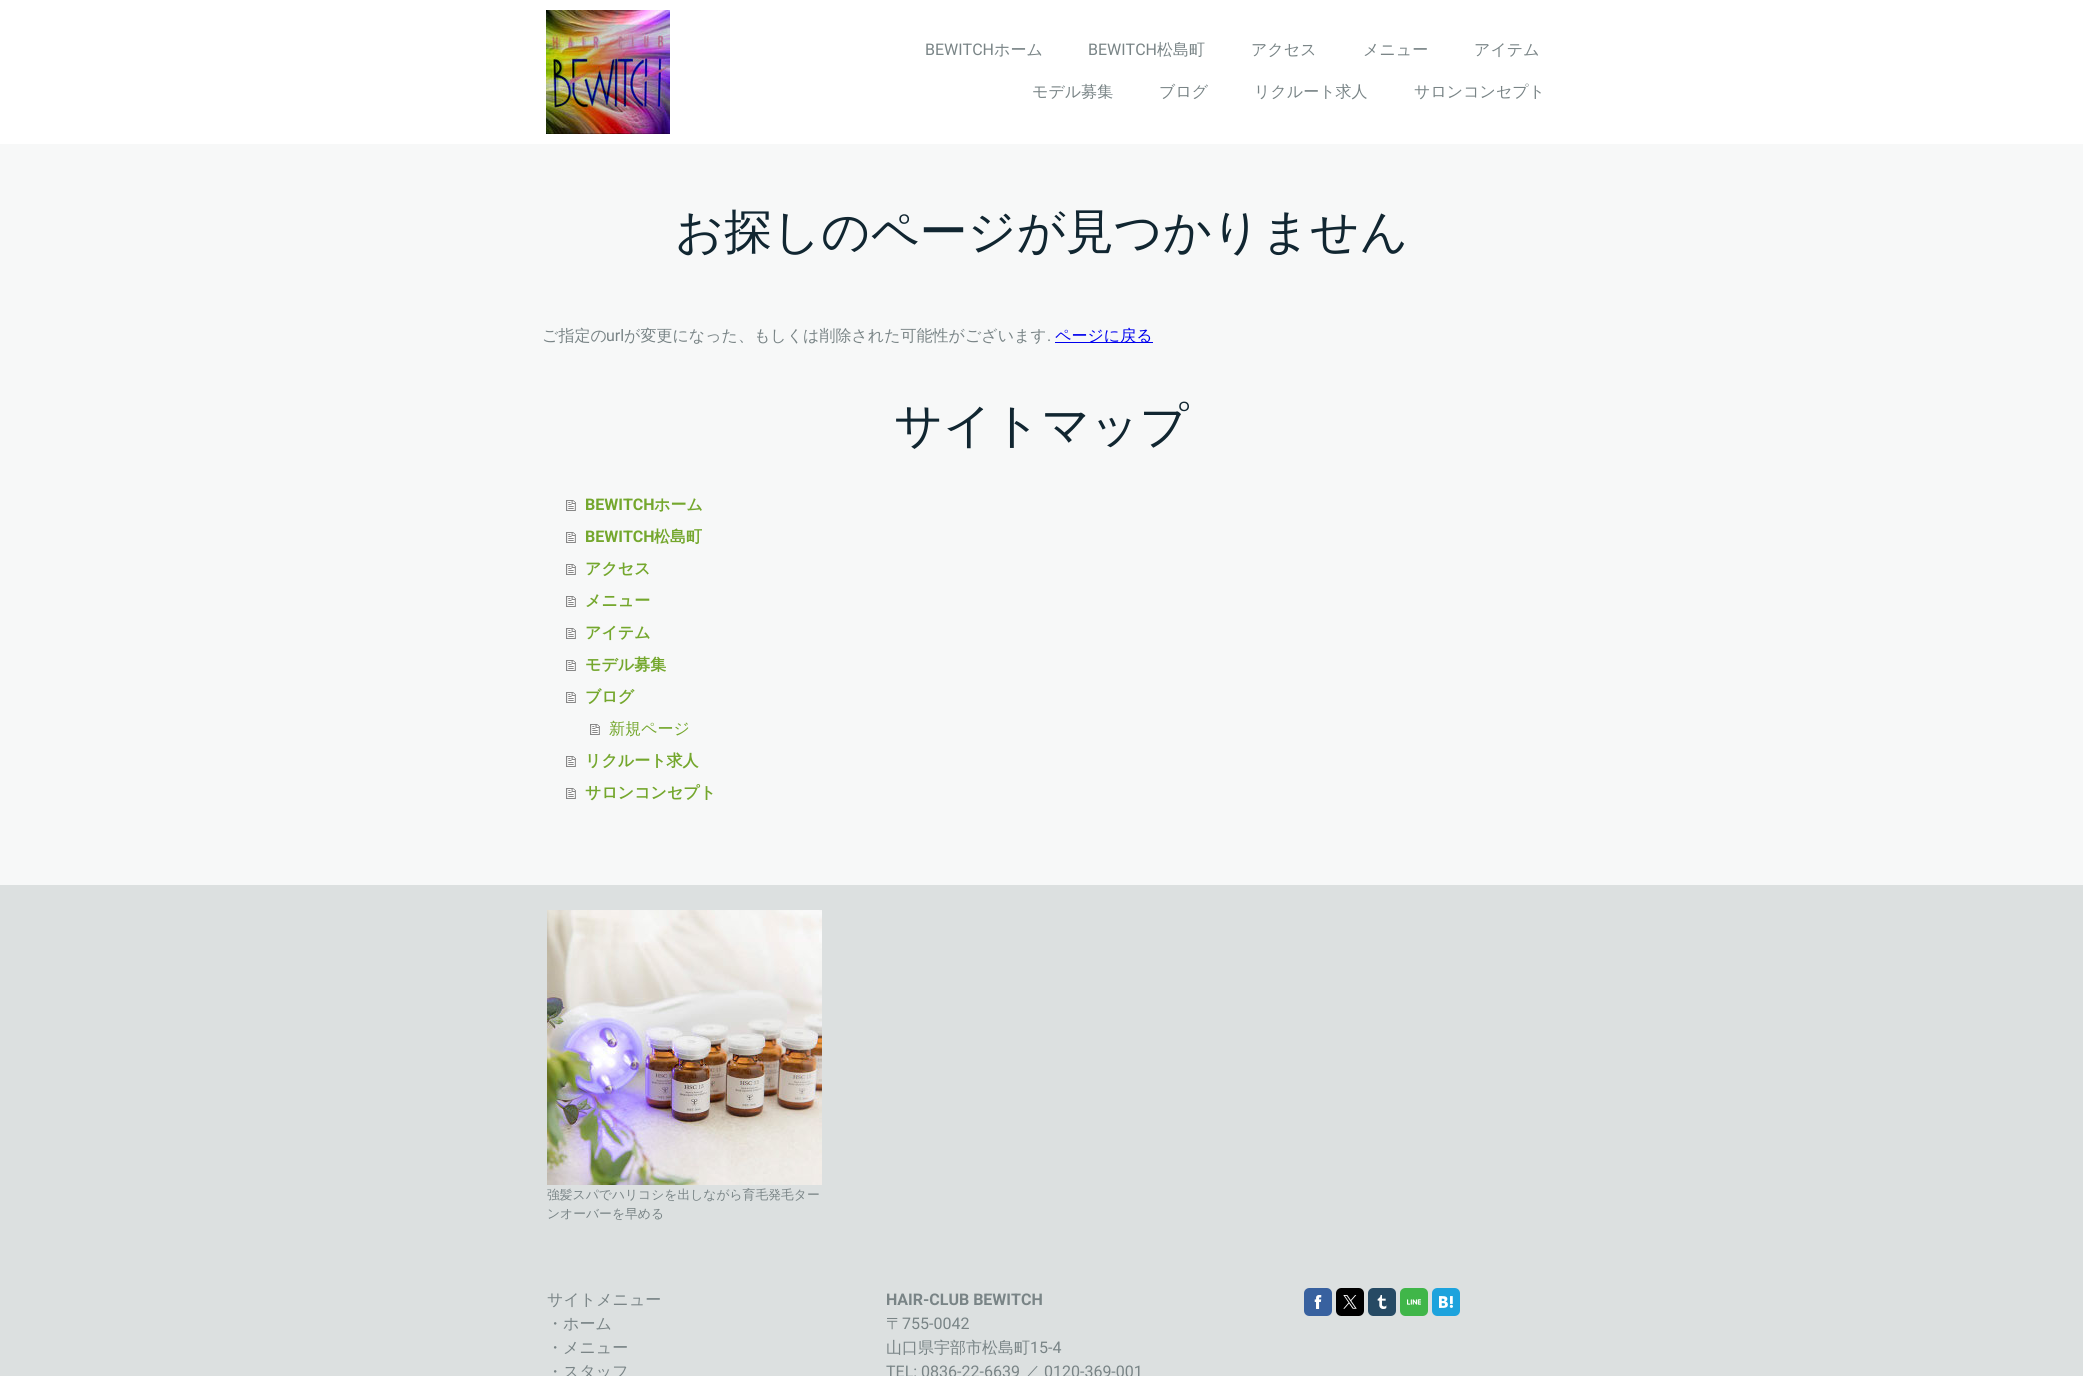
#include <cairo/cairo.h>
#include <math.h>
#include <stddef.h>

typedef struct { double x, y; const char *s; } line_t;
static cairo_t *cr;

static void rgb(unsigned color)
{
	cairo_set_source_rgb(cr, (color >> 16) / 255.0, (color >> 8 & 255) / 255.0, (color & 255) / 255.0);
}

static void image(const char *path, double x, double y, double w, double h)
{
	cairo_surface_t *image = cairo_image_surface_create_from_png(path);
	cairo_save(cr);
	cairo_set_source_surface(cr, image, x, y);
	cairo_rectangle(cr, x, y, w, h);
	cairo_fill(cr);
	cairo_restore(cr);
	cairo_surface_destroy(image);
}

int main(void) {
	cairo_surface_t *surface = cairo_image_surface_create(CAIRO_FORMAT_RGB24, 2083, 1376);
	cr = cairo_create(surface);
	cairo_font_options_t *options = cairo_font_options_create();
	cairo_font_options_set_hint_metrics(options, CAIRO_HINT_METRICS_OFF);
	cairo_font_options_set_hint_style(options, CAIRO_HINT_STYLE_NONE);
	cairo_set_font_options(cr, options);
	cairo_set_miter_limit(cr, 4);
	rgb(0xffffff);
	cairo_paint(cr);
	image("img/1.png", 546, 10, 124, 124);
	rgb(0xf7f8f8);
	cairo_rectangle(cr, 0, 144, 2083, 741);
	cairo_fill(cr);
	rgb(0x0000ee);
	cairo_rectangle(cr, 1055, 342, 98, 1);
	cairo_fill(cr);
	image("img/2.png", 566, 500, 10, 11);
	image("img/2.png", 566, 532, 10, 11);
	image("img/2.png", 566, 564, 10, 11);
	image("img/2.png", 566, 596, 10, 11);
	image("img/2.png", 566, 628, 10, 11);
	image("img/2.png", 566, 660, 10, 11);
	image("img/2.png", 566, 692, 10, 11);
	image("img/3.png", 590, 724, 10, 11);
	image("img/2.png", 566, 756, 10, 11);
	image("img/2.png", 566, 788, 10, 11);
	rgb(0xdce0e0);
	cairo_rectangle(cr, 0, 885, 2083, 491);
	cairo_fill(cr);
	image("img/4.png", 547, 910, 275, 275);
	image("img/5.png", 1304, 1288, 28, 28);
	image("img/6.png", 1314, 1295, 8, 14);
	image("img/7.png", 1336, 1288, 28, 28);
	image("img/8.png", 1343, 1295, 14, 14);
	image("img/9.png", 1368, 1288, 28, 28);
	image("img/10.png", 1377, 1295, 10, 14);
	image("img/11.png", 1400, 1288, 28, 28);
	image("img/12.png", 1407, 1299, 14, 6);
	image("img/13.png", 1432, 1288, 28, 28);
	image("img/14.png", 1439, 1296, 14, 12);
	cairo_select_font_face(cr, "Roboto", CAIRO_FONT_SLANT_NORMAL, CAIRO_FONT_WEIGHT_NORMAL);
	cairo_set_font_size(cr, 16);
	rgb(0x798486);
	cairo_move_to(cr, 925, 55);
	cairo_show_text(cr, "BEWITCH");
	cairo_select_font_face(cr, "WenQuanYi Zen Hei Medium", CAIRO_FONT_SLANT_NORMAL, CAIRO_FONT_WEIGHT_NORMAL);
	cairo_move_to(cr, 994, 55);
	cairo_show_text(cr, "ホーム");
	cairo_select_font_face(cr, "Roboto", CAIRO_FONT_SLANT_NORMAL, CAIRO_FONT_WEIGHT_NORMAL);
	cairo_move_to(cr, 1088, 55);
	cairo_show_text(cr, "BEWITCH");
	cairo_select_font_face(cr, "WenQuanYi Zen Hei Medium", CAIRO_FONT_SLANT_NORMAL, CAIRO_FONT_WEIGHT_NORMAL);
	{
		static const line_t items[] = {
			{1157, 55, "松島町"},
			{1251, 55, "アクセス"},
			{1363, 55, "メニュー"},
			{1474, 55, "アイテム"},
			{1032, 97, "モデル募集"},
			{1159, 97, "ブログ"},
			{1254, 97, "リクルート求人"},
			{1414, 97, "サロンコンセプト"},
		};
		for (size_t i = 0; i < sizeof items / sizeof *items; i++) {
			cairo_move_to(cr, items[i].x, items[i].y);
			cairo_show_text(cr, items[i].s);
		}
	}
	cairo_set_font_size(cr, 48);
	rgb(0x112631);
	cairo_move_to(cr, 675, 248);
	cairo_show_text(cr, "お探しのページが見つかりません");
	cairo_set_font_size(cr, 16);
	rgb(0x798486);
	cairo_move_to(cr, 542, 341);
	cairo_show_text(cr, "ご指定の");
	cairo_select_font_face(cr, "Roboto", CAIRO_FONT_SLANT_NORMAL, CAIRO_FONT_WEIGHT_NORMAL);
	cairo_move_to(cr, 606, 341);
	cairo_show_text(cr, "url");
	cairo_select_font_face(cr, "WenQuanYi Zen Hei Medium", CAIRO_FONT_SLANT_NORMAL, CAIRO_FONT_WEIGHT_NORMAL);
	cairo_move_to(cr, 624, 341);
	cairo_show_text(cr, "が変更になった、もしくは削除された可能性がございます");
	cairo_select_font_face(cr, "Roboto", CAIRO_FONT_SLANT_NORMAL, CAIRO_FONT_WEIGHT_NORMAL);
	cairo_move_to(cr, 1047, 341);
	cairo_show_text(cr, ".");
	cairo_select_font_face(cr, "WenQuanYi Zen Hei Medium", CAIRO_FONT_SLANT_NORMAL, CAIRO_FONT_WEIGHT_NORMAL);
	rgb(0x0000ee);
	cairo_move_to(cr, 1055, 341);
	cairo_show_text(cr, "ページに戻る");
	cairo_set_font_size(cr, 48);
	rgb(0x112631);
	cairo_move_to(cr, 894, 442);
	cairo_show_text(cr, "サイトマップ");
	cairo_select_font_face(cr, "Roboto", CAIRO_FONT_SLANT_NORMAL, CAIRO_FONT_WEIGHT_BOLD);
	cairo_set_font_size(cr, 16);
	rgb(0x74a72d);
	cairo_move_to(cr, 585, 510);
	cairo_show_text(cr, "BEWITCH");
	cairo_select_font_face(cr, "WenQuanYi Zen Hei", CAIRO_FONT_SLANT_NORMAL, CAIRO_FONT_WEIGHT_BOLD);
	cairo_move_to(cr, 654, 510);
	cairo_show_text(cr, "ホーム");
	cairo_select_font_face(cr, "Roboto", CAIRO_FONT_SLANT_NORMAL, CAIRO_FONT_WEIGHT_BOLD);
	cairo_move_to(cr, 585, 542);
	cairo_show_text(cr, "BEWITCH");
	cairo_select_font_face(cr, "WenQuanYi Zen Hei", CAIRO_FONT_SLANT_NORMAL, CAIRO_FONT_WEIGHT_BOLD);
	{
		static const line_t items[] = {
			{654, 542, "松島町"},
			{585, 574, "アクセス"},
			{585, 606, "メニュー"},
			{585, 638, "アイテム"},
			{585, 670, "モデル募集"},
			{585, 702, "ブログ"},
		};
		for (size_t i = 0; i < sizeof items / sizeof *items; i++) {
			cairo_move_to(cr, items[i].x, items[i].y);
			cairo_show_text(cr, items[i].s);
		}
	}
	cairo_select_font_face(cr, "WenQuanYi Zen Hei Medium", CAIRO_FONT_SLANT_NORMAL, CAIRO_FONT_WEIGHT_NORMAL);
	cairo_move_to(cr, 609, 734);
	cairo_show_text(cr, "新規ページ");
	cairo_select_font_face(cr, "WenQuanYi Zen Hei", CAIRO_FONT_SLANT_NORMAL, CAIRO_FONT_WEIGHT_BOLD);
	cairo_move_to(cr, 585, 766);
	cairo_show_text(cr, "リクルート求人");
	cairo_move_to(cr, 585, 798);
	cairo_show_text(cr, "サロンコンセプト");
	cairo_select_font_face(cr, "WenQuanYi Zen Hei Medium", CAIRO_FONT_SLANT_NORMAL, CAIRO_FONT_WEIGHT_NORMAL);
	cairo_set_font_size(cr, 12.8);
	rgb(0x798486);
	cairo_move_to(cr, 547, 1199);
	cairo_show_text(cr, "強髪スパでハリコシを出しながら育毛発毛ター");
	cairo_move_to(cr, 547, 1218);
	cairo_show_text(cr, "ンオーバーを早める");
	cairo_set_font_size(cr, 16);
	{
		static const line_t items[] = {
			{547, 1305, "サイトメニュー"},
			{547, 1329, "・ホーム"},
			{547, 1353, "・メニュー"},
			{547, 1377, "・スタッフ"},
		};
		for (size_t i = 0; i < sizeof items / sizeof *items; i++) {
			cairo_move_to(cr, items[i].x, items[i].y);
			cairo_show_text(cr, items[i].s);
		}
	}
	cairo_select_font_face(cr, "Roboto", CAIRO_FONT_SLANT_NORMAL, CAIRO_FONT_WEIGHT_BOLD);
	cairo_move_to(cr, 886, 1305);
	cairo_show_text(cr, "HAIR-CLUB BEWITCH");
	cairo_select_font_face(cr, "WenQuanYi Zen Hei Medium", CAIRO_FONT_SLANT_NORMAL, CAIRO_FONT_WEIGHT_NORMAL);
	cairo_move_to(cr, 886, 1329);
	cairo_show_text(cr, "〒");
	cairo_select_font_face(cr, "Roboto", CAIRO_FONT_SLANT_NORMAL, CAIRO_FONT_WEIGHT_NORMAL);
	cairo_move_to(cr, 902, 1329);
	cairo_show_text(cr, "755-0042");
	cairo_select_font_face(cr, "WenQuanYi Zen Hei Medium", CAIRO_FONT_SLANT_NORMAL, CAIRO_FONT_WEIGHT_NORMAL);
	cairo_move_to(cr, 886, 1353);
	cairo_show_text(cr, "山口県宇部市松島町");
	cairo_select_font_face(cr, "Roboto", CAIRO_FONT_SLANT_NORMAL, CAIRO_FONT_WEIGHT_NORMAL);
	cairo_move_to(cr, 1030, 1353);
	cairo_show_text(cr, "15-4");
	cairo_move_to(cr, 886, 1377);
	cairo_show_text(cr, "TEL: 0836-22-6639");
	cairo_select_font_face(cr, "WenQuanYi Zen Hei Medium", CAIRO_FONT_SLANT_NORMAL, CAIRO_FONT_WEIGHT_NORMAL);
	cairo_move_to(cr, 1024, 1377);
	cairo_show_text(cr, "／");
	cairo_select_font_face(cr, "Roboto", CAIRO_FONT_SLANT_NORMAL, CAIRO_FONT_WEIGHT_NORMAL);
	cairo_move_to(cr, 1044, 1377);
	cairo_show_text(cr, "0120-369-001");
	cairo_surface_write_to_png(surface, "page.png");
	cairo_font_options_destroy(options);
	cairo_destroy(cr);
	cairo_surface_destroy(surface);
	return 0;
}
